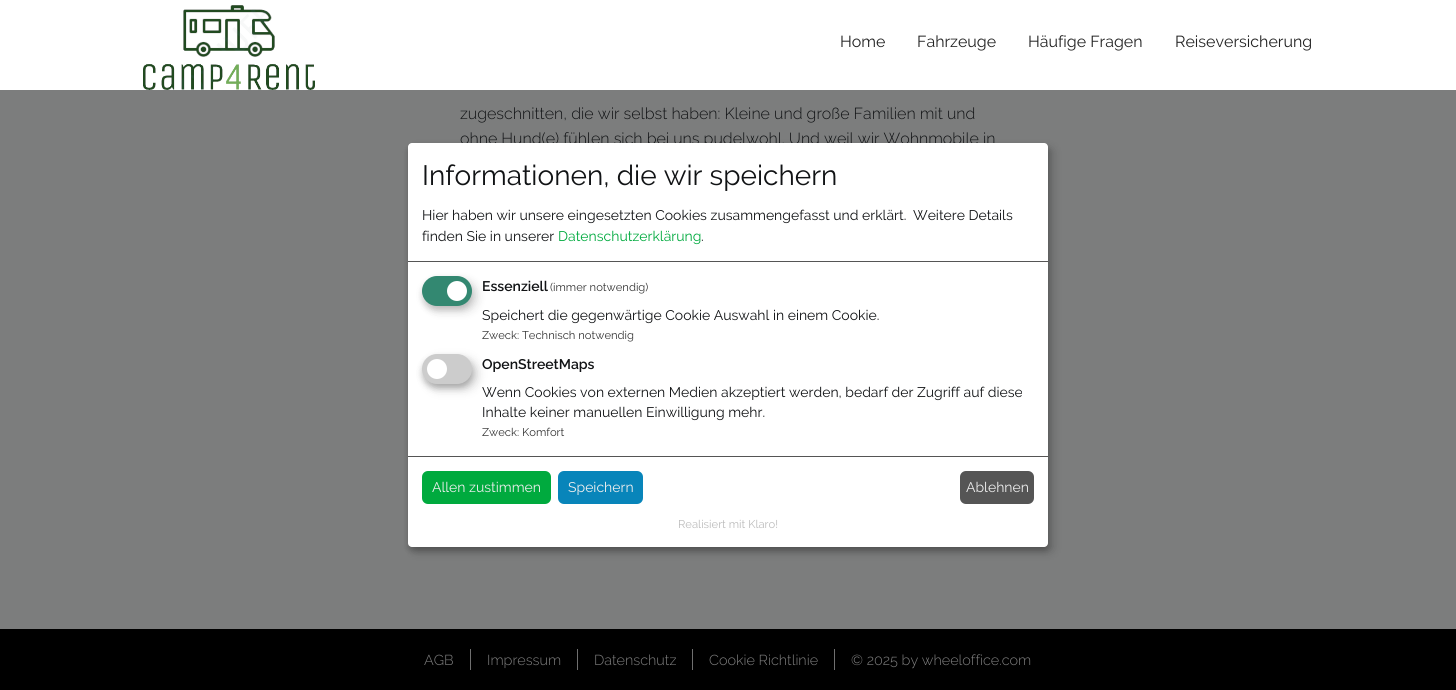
#include <cairo/cairo.h>
#include <math.h>
#include <stddef.h>

typedef struct { double x, y; const char *s; } line_t;
typedef struct { double x, y, w, h; unsigned color; } box_t;
static cairo_t *cr;

static void rgb(unsigned color)
{
	cairo_set_source_rgb(cr, (color >> 16) / 255.0, (color >> 8 & 255) / 255.0, (color & 255) / 255.0);
}

static void rrect(double x, double y, double w, double h, double r)
{
	cairo_new_sub_path(cr);
	cairo_arc(cr, x + w - r, y + h - r, r, 0, M_PI / 2);
	cairo_arc(cr, x + r, y + h - r, r, M_PI / 2, M_PI);
	cairo_arc(cr, x + r, y + r, r, M_PI, 1.5 * M_PI);
	cairo_arc(cr, x + w - r, y + r, r, 1.5 * M_PI, 2 * M_PI);
	cairo_close_path(cr);
}

static void soft_shadow(double x, double y, double w, double h, double r, double blur, double alpha)
{
	cairo_push_group_with_content(cr, CAIRO_CONTENT_ALPHA);
	cairo_set_operator(cr, CAIRO_OPERATOR_SOURCE);
	for (int i = 15; i >= -15 && fmin(w, h) + blur * i / 3 > 0; i -= 2) {
		double e = blur * i / 6;
		cairo_set_source_rgba(cr, 0, 0, 0, alpha * erfc((i - 1) / 8.5) / 2);
		rrect(x - e, y - e, w + 2 * e, h + 2 * e, fmax(0, fmin(r + e + blur * .6, fmin(w, h) / 2 + e)));
		cairo_fill(cr);
	}
	cairo_pattern_t *soft = cairo_pop_group(cr);
	cairo_mask(cr, soft);
	cairo_pattern_destroy(soft);
}

static void image(const char *path, double x, double y, double w, double h)
{
	cairo_surface_t *image = cairo_image_surface_create_from_png(path);
	cairo_save(cr);
	cairo_set_source_surface(cr, image, x, y);
	cairo_rectangle(cr, x, y, w, h);
	cairo_fill(cr);
	cairo_restore(cr);
	cairo_surface_destroy(image);
}

int main(void) {
	cairo_surface_t *surface = cairo_image_surface_create(CAIRO_FORMAT_RGB24, 1456, 690);
	cr = cairo_create(surface);
	cairo_font_options_t *options = cairo_font_options_create();
	cairo_font_options_set_hint_metrics(options, CAIRO_HINT_METRICS_OFF);
	cairo_font_options_set_hint_style(options, CAIRO_HINT_STYLE_NONE);
	cairo_set_font_options(cr, options);
	cairo_set_miter_limit(cr, 4);
	rgb(0x7c7d7d);
	cairo_paint(cr);
	rgb(0xffffff);
	cairo_rectangle(cr, 0, 0, 1456, 90);
	cairo_fill(cr);
	image("img/1.png", 143, 5, 172, 85);
	{
		static const box_t items[] = {
			{0, 629, 1456, 61, 0x000000},
			{470, 649, 1, 21, 0x6f6f6f},
			{577, 649, 1, 21, 0x6f6f6f},
			{692, 649, 1, 21, 0x6f6f6f},
			{834, 649, 1, 21, 0x6f6f6f},
		};
		for (size_t i = 0; i < sizeof items / sizeof *items; i++) {
			rgb(items[i].color);
			cairo_rectangle(cr, items[i].x, items[i].y, items[i].w, items[i].h);
			cairo_fill(cr);
		}
	}
	rgb(0x000000);
	soft_shadow(413, 148, 640, 404, 4, 5, 0.19);
	soft_shadow(408, 147, 640, 404, 4, 3, 0.2);
	cairo_select_font_face(cr, "Raleway", CAIRO_FONT_SLANT_NORMAL, CAIRO_FONT_WEIGHT_NORMAL);
	cairo_set_font_size(cr, 16);
	rgb(0x222222);
	{
		static const line_t items[] = {
			{840, 47, "Home"},
			{917, 47, "Fahrzeuge"},
			{1028, 47, "Häufige Fragen"},
			{1175, 47, "Reiseversicherung"},
		};
		for (size_t i = 0; i < sizeof items / sizeof *items; i++) {
			cairo_move_to(cr, items[i].x, items[i].y);
			cairo_show_text(cr, items[i].s);
		}
	}
	cairo_select_font_face(cr, "Raleway Light", CAIRO_FONT_SLANT_NORMAL, CAIRO_FONT_WEIGHT_NORMAL);
	rgb(0x111315);
	cairo_move_to(cr, 460, 119);
	cairo_show_text(cr, "zugeschnitten, die wir selbst haben: Kleine und große Familien mit und");
	cairo_move_to(cr, 460, 144);
	cairo_show_text(cr, "ohne Hund(e) fühlen sich bei uns pudelwohl. Und weil wir Wohnmobile in");
	cairo_set_font_size(cr, 14.4);
	rgb(0x808080);
	{
		static const line_t items[] = {
			{424, 665, "AGB"},
			{487, 665, "Impressum"},
			{594, 665, "Datenschutz"},
			{709, 665, "Cookie Richtlinie"},
			{851, 665, "© 2025 by wheeloffice.com"},
		};
		for (size_t i = 0; i < sizeof items / sizeof *items; i++) {
			cairo_move_to(cr, items[i].x, items[i].y);
			cairo_show_text(cr, items[i].s);
		}
	}
	rgb(0xffffff);
	rrect(408, 143, 640, 404, 4);
	cairo_fill(cr);
	rgb(0x555555);
	cairo_rectangle(cr, 408, 261, 640, 1);
	cairo_fill(cr);
	cairo_select_font_face(cr, "Raleway", CAIRO_FONT_SLANT_NORMAL, CAIRO_FONT_WEIGHT_NORMAL);
	cairo_set_font_size(cr, 28);
	rgb(0x111315);
	cairo_move_to(cr, 422, 185);
	cairo_show_text(cr, "Informationen, die wir speichern");
	cairo_set_font_size(cr, 14);
	{
		static const line_t items[] = {
			{422, 220, "Hier haben wir unsere eingesetzten Cookies zusammengefasst und erklärt."},
			{913, 220, "Weitere Details"},
			{422, 241, "finden Sie in unserer"},
		};
		for (size_t i = 0; i < sizeof items / sizeof *items; i++) {
			cairo_move_to(cr, items[i].x, items[i].y);
			cairo_show_text(cr, items[i].s);
		}
	}
	rgb(0x00aa3e);
	cairo_move_to(cr, 558, 241);
	cairo_show_text(cr, "Datenschutzerklärung");
	rgb(0x111315);
	cairo_move_to(cr, 701, 241);
	cairo_show_text(cr, ".");
	rgb(0x000000);
	soft_shadow(427, 281, 50, 30, 15, 5, 0.15);
	rgb(0x333333);
	soft_shadow(422, 280, 50, 30, 15, 3, 0.2);
	rgb(0x338871);
	rrect(422, 276, 50, 30, 15);
	cairo_fill(cr);
	rgb(0xffffff);
	cairo_arc(cr, 457, 291, 10, 0, 2 * M_PI);
	cairo_fill(cr);
	cairo_select_font_face(cr, "Raleway SemiBold", CAIRO_FONT_SLANT_NORMAL, CAIRO_FONT_WEIGHT_NORMAL);
	rgb(0x111315);
	cairo_move_to(cr, 482, 291);
	cairo_show_text(cr, "Essenziell");
	cairo_select_font_face(cr, "Raleway", CAIRO_FONT_SLANT_NORMAL, CAIRO_FONT_WEIGHT_NORMAL);
	cairo_set_font_size(cr, 11.25);
	rgb(0x333333);
	cairo_move_to(cr, 550, 291);
	cairo_show_text(cr, "(immer notwendig)");
	cairo_set_font_size(cr, 14);
	rgb(0x111315);
	cairo_move_to(cr, 482, 320);
	cairo_show_text(cr, "Speichert die gegenwärtige Cookie Auswahl in einem Cookie.");
	cairo_set_font_size(cr, 11.25);
	rgb(0x333333);
	cairo_move_to(cr, 482, 339);
	cairo_show_text(cr, "Zweck: Technisch notwendig");
	rgb(0x000000);
	soft_shadow(427, 359, 50, 30, 15, 5, 0.19);
	soft_shadow(422, 358, 50, 30, 15, 3, 0.2);
	rgb(0xcccccc);
	rrect(422, 354, 50, 30, 15);
	cairo_fill(cr);
	rgb(0xffffff);
	cairo_arc(cr, 437, 369, 10, 0, 2 * M_PI);
	cairo_fill(cr);
	cairo_select_font_face(cr, "Raleway SemiBold", CAIRO_FONT_SLANT_NORMAL, CAIRO_FONT_WEIGHT_NORMAL);
	cairo_set_font_size(cr, 14);
	rgb(0x111315);
	cairo_move_to(cr, 482, 369);
	cairo_show_text(cr, "OpenStreetMaps");
	cairo_select_font_face(cr, "Raleway", CAIRO_FONT_SLANT_NORMAL, CAIRO_FONT_WEIGHT_NORMAL);
	cairo_move_to(cr, 482, 397);
	cairo_show_text(cr, "Wenn Cookies von externen Medien akzeptiert werden, bedarf der Zugriff auf diese");
	cairo_move_to(cr, 482, 417);
	cairo_show_text(cr, "Inhalte keiner manuellen Einwilligung mehr.");
	cairo_set_font_size(cr, 11.25);
	rgb(0x333333);
	cairo_move_to(cr, 482, 436);
	cairo_show_text(cr, "Zweck: Komfort");
	rgb(0x555555);
	cairo_rectangle(cr, 408, 456, 640, 1);
	cairo_fill(cr);
	rgb(0x00aa3e);
	rrect(422, 471, 129, 33, 6);
	cairo_fill(cr);
	cairo_set_font_size(cr, 14);
	rgb(0xeeeeee);
	cairo_move_to(cr, 432, 492);
	cairo_show_text(cr, "Allen zustimmen");
	rgb(0x0885ba);
	rrect(558, 471, 85, 33, 6);
	cairo_fill(cr);
	rgb(0xeeeeee);
	cairo_move_to(cr, 568, 492);
	cairo_show_text(cr, "Speichern");
	rgb(0x555555);
	rrect(960, 471, 74, 33, 6);
	cairo_fill(cr);
	rgb(0xeeeeee);
	cairo_move_to(cr, 966, 492);
	cairo_show_text(cr, "Ablehnen");
	cairo_set_font_size(cr, 11.25);
	rgb(0xbbbbbb);
	cairo_move_to(cr, 678, 528);
	cairo_show_text(cr, "Realisiert mit Klaro!");
	cairo_surface_write_to_png(surface, "page.png");
	cairo_font_options_destroy(options);
	cairo_destroy(cr);
	cairo_surface_destroy(surface);
	return 0;
}
